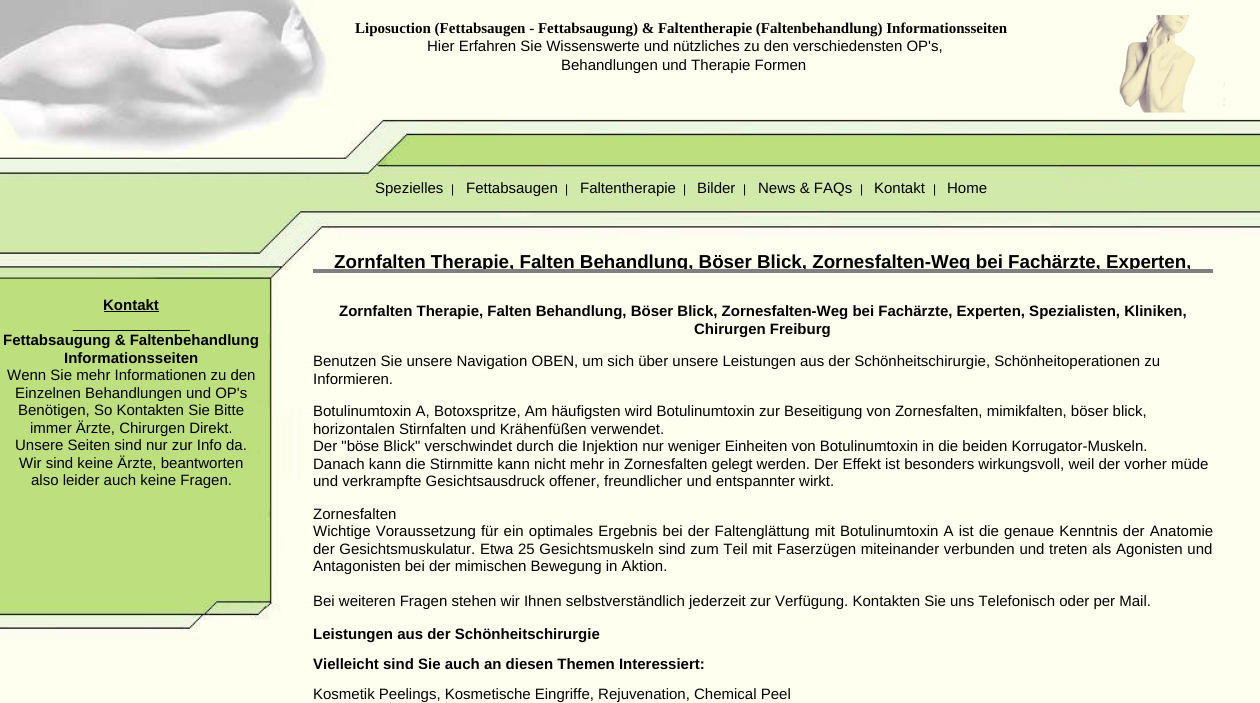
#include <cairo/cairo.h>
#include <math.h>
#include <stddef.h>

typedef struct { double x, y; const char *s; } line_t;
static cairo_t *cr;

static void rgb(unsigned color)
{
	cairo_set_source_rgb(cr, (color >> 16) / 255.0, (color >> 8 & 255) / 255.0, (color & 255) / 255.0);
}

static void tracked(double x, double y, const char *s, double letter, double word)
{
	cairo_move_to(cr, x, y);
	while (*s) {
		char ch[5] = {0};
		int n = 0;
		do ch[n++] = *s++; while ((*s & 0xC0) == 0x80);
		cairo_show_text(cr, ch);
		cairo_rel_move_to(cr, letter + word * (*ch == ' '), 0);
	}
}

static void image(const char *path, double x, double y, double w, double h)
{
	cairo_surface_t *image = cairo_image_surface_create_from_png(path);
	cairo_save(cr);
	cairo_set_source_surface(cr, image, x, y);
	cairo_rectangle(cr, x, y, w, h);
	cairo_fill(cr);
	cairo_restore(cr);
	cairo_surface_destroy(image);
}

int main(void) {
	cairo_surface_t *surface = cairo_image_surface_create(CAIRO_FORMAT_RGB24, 1260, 703);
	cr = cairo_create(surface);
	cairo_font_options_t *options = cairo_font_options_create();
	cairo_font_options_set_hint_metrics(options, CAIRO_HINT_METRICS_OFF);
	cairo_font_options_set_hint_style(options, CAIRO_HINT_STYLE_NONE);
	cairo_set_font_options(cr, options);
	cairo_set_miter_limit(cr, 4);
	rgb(0xffffff);
	cairo_paint(cr);
	image("img/1.png", 0, 0, 1260, 703);
	image("img/2.png", 0, 0, 344, 158);
	image("img/3.png", 1119, 15, 106, 98);
	rgb(0x808080);
	cairo_rectangle(cr, 313, 269, 900, 4);
	cairo_fill(cr);
	rgb(0x000000);
	cairo_rectangle(cr, 104, 311, 55, 1);
	cairo_fill(cr);
	cairo_select_font_face(cr, "Liberation Serif", CAIRO_FONT_SLANT_NORMAL, CAIRO_FONT_WEIGHT_BOLD);
	cairo_set_font_size(cr, 15);
	cairo_move_to(cr, 355, 33);
	cairo_show_text(cr, "Liposuction (Fettabsaugen - Fettabsaugung) & Faltentherapie (Faltenbehandlung) Informationsseiten");
	cairo_select_font_face(cr, "Liberation Sans", CAIRO_FONT_SLANT_NORMAL, CAIRO_FONT_WEIGHT_NORMAL);
	{
		static const line_t items[] = {
			{427, 51, "Hier Erfahren Sie Wissenswerte und nützliches zu den verschiedensten OP's,"},
			{561, 70, "Behandlungen und Therapie Formen"},
			{375, 193, "Spezielles"},
		};
		for (size_t i = 0; i < sizeof items / sizeof *items; i++) {
			cairo_move_to(cr, items[i].x, items[i].y);
			cairo_show_text(cr, items[i].s);
		}
	}
	cairo_set_font_size(cr, 12);
	cairo_move_to(cr, 451, 193);
	cairo_show_text(cr, "|");
	cairo_set_font_size(cr, 15);
	cairo_move_to(cr, 466, 193);
	cairo_show_text(cr, "Fettabsaugen");
	cairo_set_font_size(cr, 12);
	cairo_move_to(cr, 565, 193);
	cairo_show_text(cr, "|");
	cairo_set_font_size(cr, 15);
	cairo_move_to(cr, 580, 193);
	cairo_show_text(cr, "Faltentherapie");
	cairo_set_font_size(cr, 12);
	cairo_move_to(cr, 683, 193);
	cairo_show_text(cr, "|");
	cairo_set_font_size(cr, 15);
	cairo_move_to(cr, 697, 193);
	cairo_show_text(cr, "Bilder");
	cairo_set_font_size(cr, 12);
	cairo_move_to(cr, 743, 193);
	cairo_show_text(cr, "|");
	cairo_set_font_size(cr, 15);
	cairo_move_to(cr, 758, 193);
	cairo_show_text(cr, "News & FAQs");
	cairo_set_font_size(cr, 12);
	cairo_move_to(cr, 860, 193);
	cairo_show_text(cr, "|");
	cairo_set_font_size(cr, 15);
	cairo_move_to(cr, 874, 193);
	cairo_show_text(cr, "Kontakt");
	cairo_set_font_size(cr, 12);
	cairo_move_to(cr, 933, 193);
	cairo_show_text(cr, "|");
	cairo_set_font_size(cr, 15);
	cairo_move_to(cr, 947, 193);
	cairo_show_text(cr, "Home");
	cairo_save(cr);
	cairo_rectangle(cr, 313, 238, 900, 31);
	cairo_clip(cr);
	cairo_select_font_face(cr, "Liberation Sans", CAIRO_FONT_SLANT_NORMAL, CAIRO_FONT_WEIGHT_BOLD);
	cairo_set_font_size(cr, 18.75);
	cairo_move_to(cr, 334, 268);
	cairo_show_text(cr, "Zornfalten Therapie, Falten Behandlung, Böser Blick, Zornesfalten-Weg bei Fachärzte, Experten,");
	cairo_restore(cr);
	cairo_select_font_face(cr, "Liberation Sans", CAIRO_FONT_SLANT_NORMAL, CAIRO_FONT_WEIGHT_BOLD);
	cairo_move_to(cr, 103, 310);
	cairo_show_text(cr, "Kontakt");
	cairo_select_font_face(cr, "Liberation Sans", CAIRO_FONT_SLANT_NORMAL, CAIRO_FONT_WEIGHT_NORMAL);
	cairo_move_to(cr, 73, 328);
	cairo_show_text(cr, "______________");
	cairo_select_font_face(cr, "Liberation Sans", CAIRO_FONT_SLANT_NORMAL, CAIRO_FONT_WEIGHT_BOLD);
	cairo_move_to(cr, 3, 345);
	cairo_show_text(cr, "Fettabsaugung & Faltenbehandlung");
	cairo_move_to(cr, 64, 363);
	cairo_show_text(cr, "Informationsseiten");
	cairo_select_font_face(cr, "Liberation Sans", CAIRO_FONT_SLANT_NORMAL, CAIRO_FONT_WEIGHT_NORMAL);
	{
		static const line_t items[] = {
			{7, 380, "Wenn Sie mehr Informationen zu den"},
			{15, 398, "Einzelnen Behandlungen und OP's"},
			{18, 415, "Benötigen, So Kontakten Sie Bitte"},
			{30, 433, "immer Ärzte, Chirurgen Direkt."},
			{15, 450, "Unsere Seiten sind nur zur Info da."},
			{19, 468, "Wir sind keine Ärzte, beantworten"},
			{31, 485, "also leider auch keine Fragen."},
		};
		for (size_t i = 0; i < sizeof items / sizeof *items; i++) {
			cairo_move_to(cr, items[i].x, items[i].y);
			cairo_show_text(cr, items[i].s);
		}
	}
	cairo_select_font_face(cr, "Liberation Sans", CAIRO_FONT_SLANT_NORMAL, CAIRO_FONT_WEIGHT_BOLD);
	cairo_move_to(cr, 339, 316);
	cairo_show_text(cr, "Zornfalten Therapie, Falten Behandlung, Böser Blick, Zornesfalten-Weg bei Fachärzte, Experten, Spezialisten, Kliniken,");
	cairo_move_to(cr, 694, 334);
	cairo_show_text(cr, "Chirurgen Freiburg");
	cairo_select_font_face(cr, "Liberation Sans", CAIRO_FONT_SLANT_NORMAL, CAIRO_FONT_WEIGHT_NORMAL);
	{
		static const line_t items[] = {
			{313, 366, "Benutzen Sie unsere Navigation OBEN, um sich über unsere Leistungen aus der Schönheitschirurgie, Schönheitoperationen zu"},
			{313, 384, "Informieren."},
			{313, 416, "Botulinumtoxin A, Botoxspritze, Am häufigsten wird Botulinumtoxin zur Beseitigung von Zornesfalten, mimikfalten, böser blick,"},
			{313, 434, "horizontalen Stirnfalten und Krähenfüßen verwendet."},
			{313, 451, "Der \"böse Blick\" verschwindet durch die Injektion nur weniger Einheiten von Botulinumtoxin in die beiden Korrugator-Muskeln."},
			{313, 469, "Danach kann die Stirnmitte kann nicht mehr in Zornesfalten gelegt werden. Der Effekt ist besonders wirkungsvoll, weil der vorher müde"},
			{313, 486, "und verkrampfte Gesichtsausdruck offener, freundlicher und entspannter wirkt."},
			{313, 519, "Zornesfalten"},
		};
		for (size_t i = 0; i < sizeof items / sizeof *items; i++) {
			cairo_move_to(cr, items[i].x, items[i].y);
			cairo_show_text(cr, items[i].s);
		}
	}
	tracked(313, 536, "Wichtige Voraussetzung für ein optimales Ergebnis bei der Faltenglättung mit Botulinumtoxin A ist die genaue Kenntnis der Anatomie", 0, 1);
	tracked(313, 554, "der Gesichtsmuskulatur. Etwa 25 Gesichtsmuskeln sind zum Teil mit Faserzügen miteinander verbunden und treten als Agonisten und", 0, 0.5);
	cairo_move_to(cr, 313, 571);
	cairo_show_text(cr, "Antagonisten bei der mimischen Bewegung in Aktion.");
	cairo_move_to(cr, 313, 606);
	cairo_show_text(cr, "Bei weiteren Fragen stehen wir Ihnen selbstverständlich jederzeit zur Verfügung. Kontakten Sie uns Telefonisch oder per Mail.");
	cairo_select_font_face(cr, "Liberation Sans", CAIRO_FONT_SLANT_NORMAL, CAIRO_FONT_WEIGHT_BOLD);
	cairo_move_to(cr, 313, 639);
	cairo_show_text(cr, "Leistungen aus der Schönheitschirurgie");
	cairo_move_to(cr, 313, 669);
	cairo_show_text(cr, "Vielleicht sind Sie auch an diesen Themen Interessiert:");
	cairo_select_font_face(cr, "Liberation Sans", CAIRO_FONT_SLANT_NORMAL, CAIRO_FONT_WEIGHT_NORMAL);
	cairo_move_to(cr, 313, 699);
	cairo_show_text(cr, "Kosmetik Peelings, Kosmetische Eingriffe, Rejuvenation, Chemical Peel");
	cairo_surface_write_to_png(surface, "page.png");
	cairo_font_options_destroy(options);
	cairo_destroy(cr);
	cairo_surface_destroy(surface);
	return 0;
}
